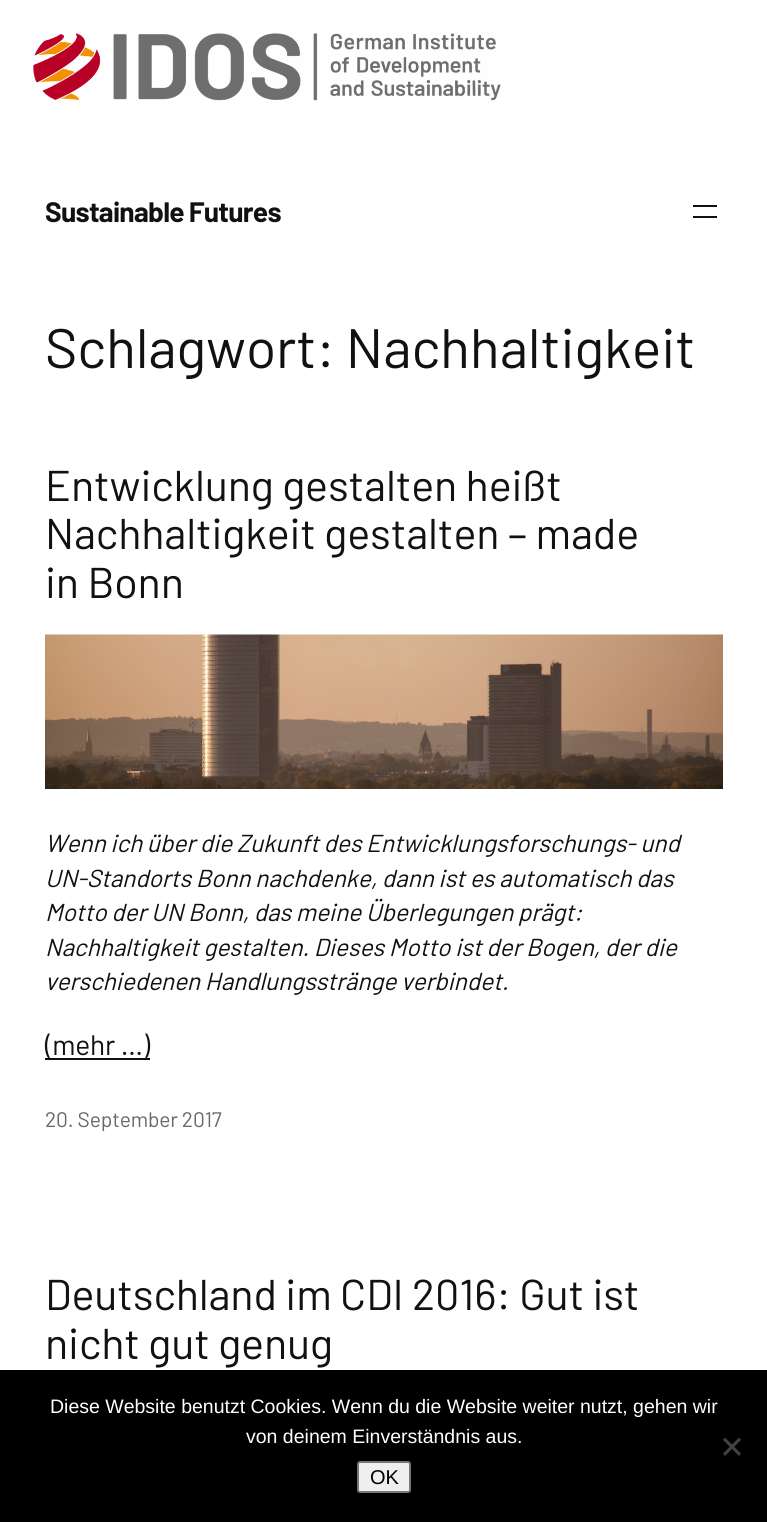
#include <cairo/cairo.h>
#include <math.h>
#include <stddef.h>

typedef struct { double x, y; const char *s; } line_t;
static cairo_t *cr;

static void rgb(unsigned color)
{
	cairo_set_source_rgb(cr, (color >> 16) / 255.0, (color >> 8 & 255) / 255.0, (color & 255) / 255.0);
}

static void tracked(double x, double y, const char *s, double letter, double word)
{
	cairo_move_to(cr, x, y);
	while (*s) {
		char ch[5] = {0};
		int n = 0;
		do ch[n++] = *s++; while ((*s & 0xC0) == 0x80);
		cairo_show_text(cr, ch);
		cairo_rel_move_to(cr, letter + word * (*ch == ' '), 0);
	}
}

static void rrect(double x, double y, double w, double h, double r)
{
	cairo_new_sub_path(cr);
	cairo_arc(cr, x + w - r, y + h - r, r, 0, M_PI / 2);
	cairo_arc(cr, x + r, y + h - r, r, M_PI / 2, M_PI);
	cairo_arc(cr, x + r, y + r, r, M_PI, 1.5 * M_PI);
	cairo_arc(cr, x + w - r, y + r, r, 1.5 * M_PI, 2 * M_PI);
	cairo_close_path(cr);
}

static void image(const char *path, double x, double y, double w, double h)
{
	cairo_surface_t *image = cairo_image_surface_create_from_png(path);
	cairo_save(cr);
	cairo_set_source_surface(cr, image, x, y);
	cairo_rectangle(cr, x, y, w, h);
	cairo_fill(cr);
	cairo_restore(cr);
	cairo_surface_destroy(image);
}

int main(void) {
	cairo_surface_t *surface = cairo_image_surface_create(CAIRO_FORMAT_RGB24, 767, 1522);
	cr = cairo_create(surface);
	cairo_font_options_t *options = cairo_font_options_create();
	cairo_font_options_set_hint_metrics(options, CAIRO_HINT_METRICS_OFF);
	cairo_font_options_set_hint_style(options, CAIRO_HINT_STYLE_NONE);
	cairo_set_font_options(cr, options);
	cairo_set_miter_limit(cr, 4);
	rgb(0xffffff);
	cairo_paint(cr);
	image("img/1.png", 33, 33, 468, 68);
	rgb(0x111111);
	cairo_rectangle(cr, 693, 205, 24, 2);
	cairo_fill(cr);
	cairo_rectangle(cr, 693, 216, 24, 2);
	cairo_fill(cr);
	image("img/2.png", 45, 634, 678, 155);
	cairo_rectangle(cr, 45, 1058, 105, 2);
	cairo_fill(cr);
	rgb(0x000000);
	cairo_rectangle(cr, 0, 1370, 767, 152);
	cairo_fill(cr);
	rgb(0x404040);
	cairo_new_path(cr);
	cairo_move_to(cr, 739, 1437.5);
	cairo_line_to(cr, 741, 1440);
	cairo_line_to(cr, 725, 1456);
	cairo_line_to(cr, 723, 1453.5);
	cairo_close_path(cr);
	cairo_fill(cr);
	cairo_new_path(cr);
	cairo_move_to(cr, 723, 1440);
	cairo_line_to(cr, 725, 1437.5);
	cairo_line_to(cr, 741, 1453.5);
	cairo_line_to(cr, 739, 1456);
	cairo_close_path(cr);
	cairo_fill(cr);
	rgb(0xefefef);
	rrect(358, 1462, 52, 30, 2);
	cairo_fill_preserve(cr);
	rgb(0x767676);
	cairo_stroke(cr);
	cairo_select_font_face(cr, "Barlow", CAIRO_FONT_SLANT_NORMAL, CAIRO_FONT_WEIGHT_BOLD);
	cairo_set_font_size(cr, 28.1);
	rgb(0x111111);
	tracked(45, 222, "Sustainable Futures", -0.75, 0);
	cairo_select_font_face(cr, "Barlow", CAIRO_FONT_SLANT_NORMAL, CAIRO_FONT_WEIGHT_NORMAL);
	cairo_set_font_size(cr, 55.5);
	tracked(45, 368, "Schlagwort: Nachhaltigkeit", -0.15, 0);
	cairo_set_font_size(cr, 43.1);
	{
		static const line_t items[] = {
			{45, 501, "Entwicklung gestalten heißt"},
			{45, 549, "Nachhaltigkeit gestalten – made"},
			{45, 598, "in Bonn"},
		};
		for (size_t i = 0; i < sizeof items / sizeof *items; i++) {
			tracked(items[i].x, items[i].y, items[i].s, -0.15, 0);
		}
	}
	cairo_select_font_face(cr, "Barlow", CAIRO_FONT_SLANT_ITALIC, CAIRO_FONT_WEIGHT_NORMAL);
	cairo_set_font_size(cr, 24.55);
	{
		static const line_t items[] = {
			{45, 852, "Wenn ich über die Zukunft des Entwicklungsforschungs- und"},
			{45, 887, "UN-Standorts Bonn nachdenke, dann ist es automatisch das"},
			{45, 921, "Motto der UN Bonn, das meine Überlegungen prägt:"},
			{45, 956, "Nachhaltigkeit gestalten. Dieses Motto ist der Bogen, der die"},
			{45, 990, "verschiedenen Handlungsstränge verbindet."},
		};
		for (size_t i = 0; i < sizeof items / sizeof *items; i++) {
			tracked(items[i].x, items[i].y, items[i].s, -0.15, 0);
		}
	}
	cairo_select_font_face(cr, "Barlow", CAIRO_FONT_SLANT_NORMAL, CAIRO_FONT_WEIGHT_NORMAL);
	cairo_set_font_size(cr, 28.1);
	tracked(45, 1055, "(mehr …)", -0.15, 0);
	cairo_set_font_size(cr, 21);
	rgb(0x686868);
	tracked(45, 1127, "20. September 2017", -0.15, 0);
	cairo_set_font_size(cr, 43.1);
	rgb(0x111111);
	tracked(45, 1310, "Deutschland im CDI 2016: Gut ist", -0.15, 0);
	tracked(45, 1359, "nicht gut genug", -0.15, 0);
	cairo_select_font_face(cr, "Liberation Sans", CAIRO_FONT_SLANT_NORMAL, CAIRO_FONT_WEIGHT_NORMAL);
	cairo_set_font_size(cr, 19.5);
	rgb(0xffffff);
	cairo_move_to(cr, 50, 1413);
	cairo_show_text(cr, "Diese Website benutzt Cookies. Wenn du die Website weiter nutzt, gehen wir");
	cairo_move_to(cr, 246, 1443);
	cairo_show_text(cr, "von deinem Einverständnis aus.");
	cairo_set_font_size(cr, 20);
	rgb(0x000000);
	cairo_move_to(cr, 370, 1484);
	cairo_show_text(cr, "OK");
	cairo_surface_write_to_png(surface, "page.png");
	cairo_font_options_destroy(options);
	cairo_destroy(cr);
	cairo_surface_destroy(surface);
	return 0;
}
